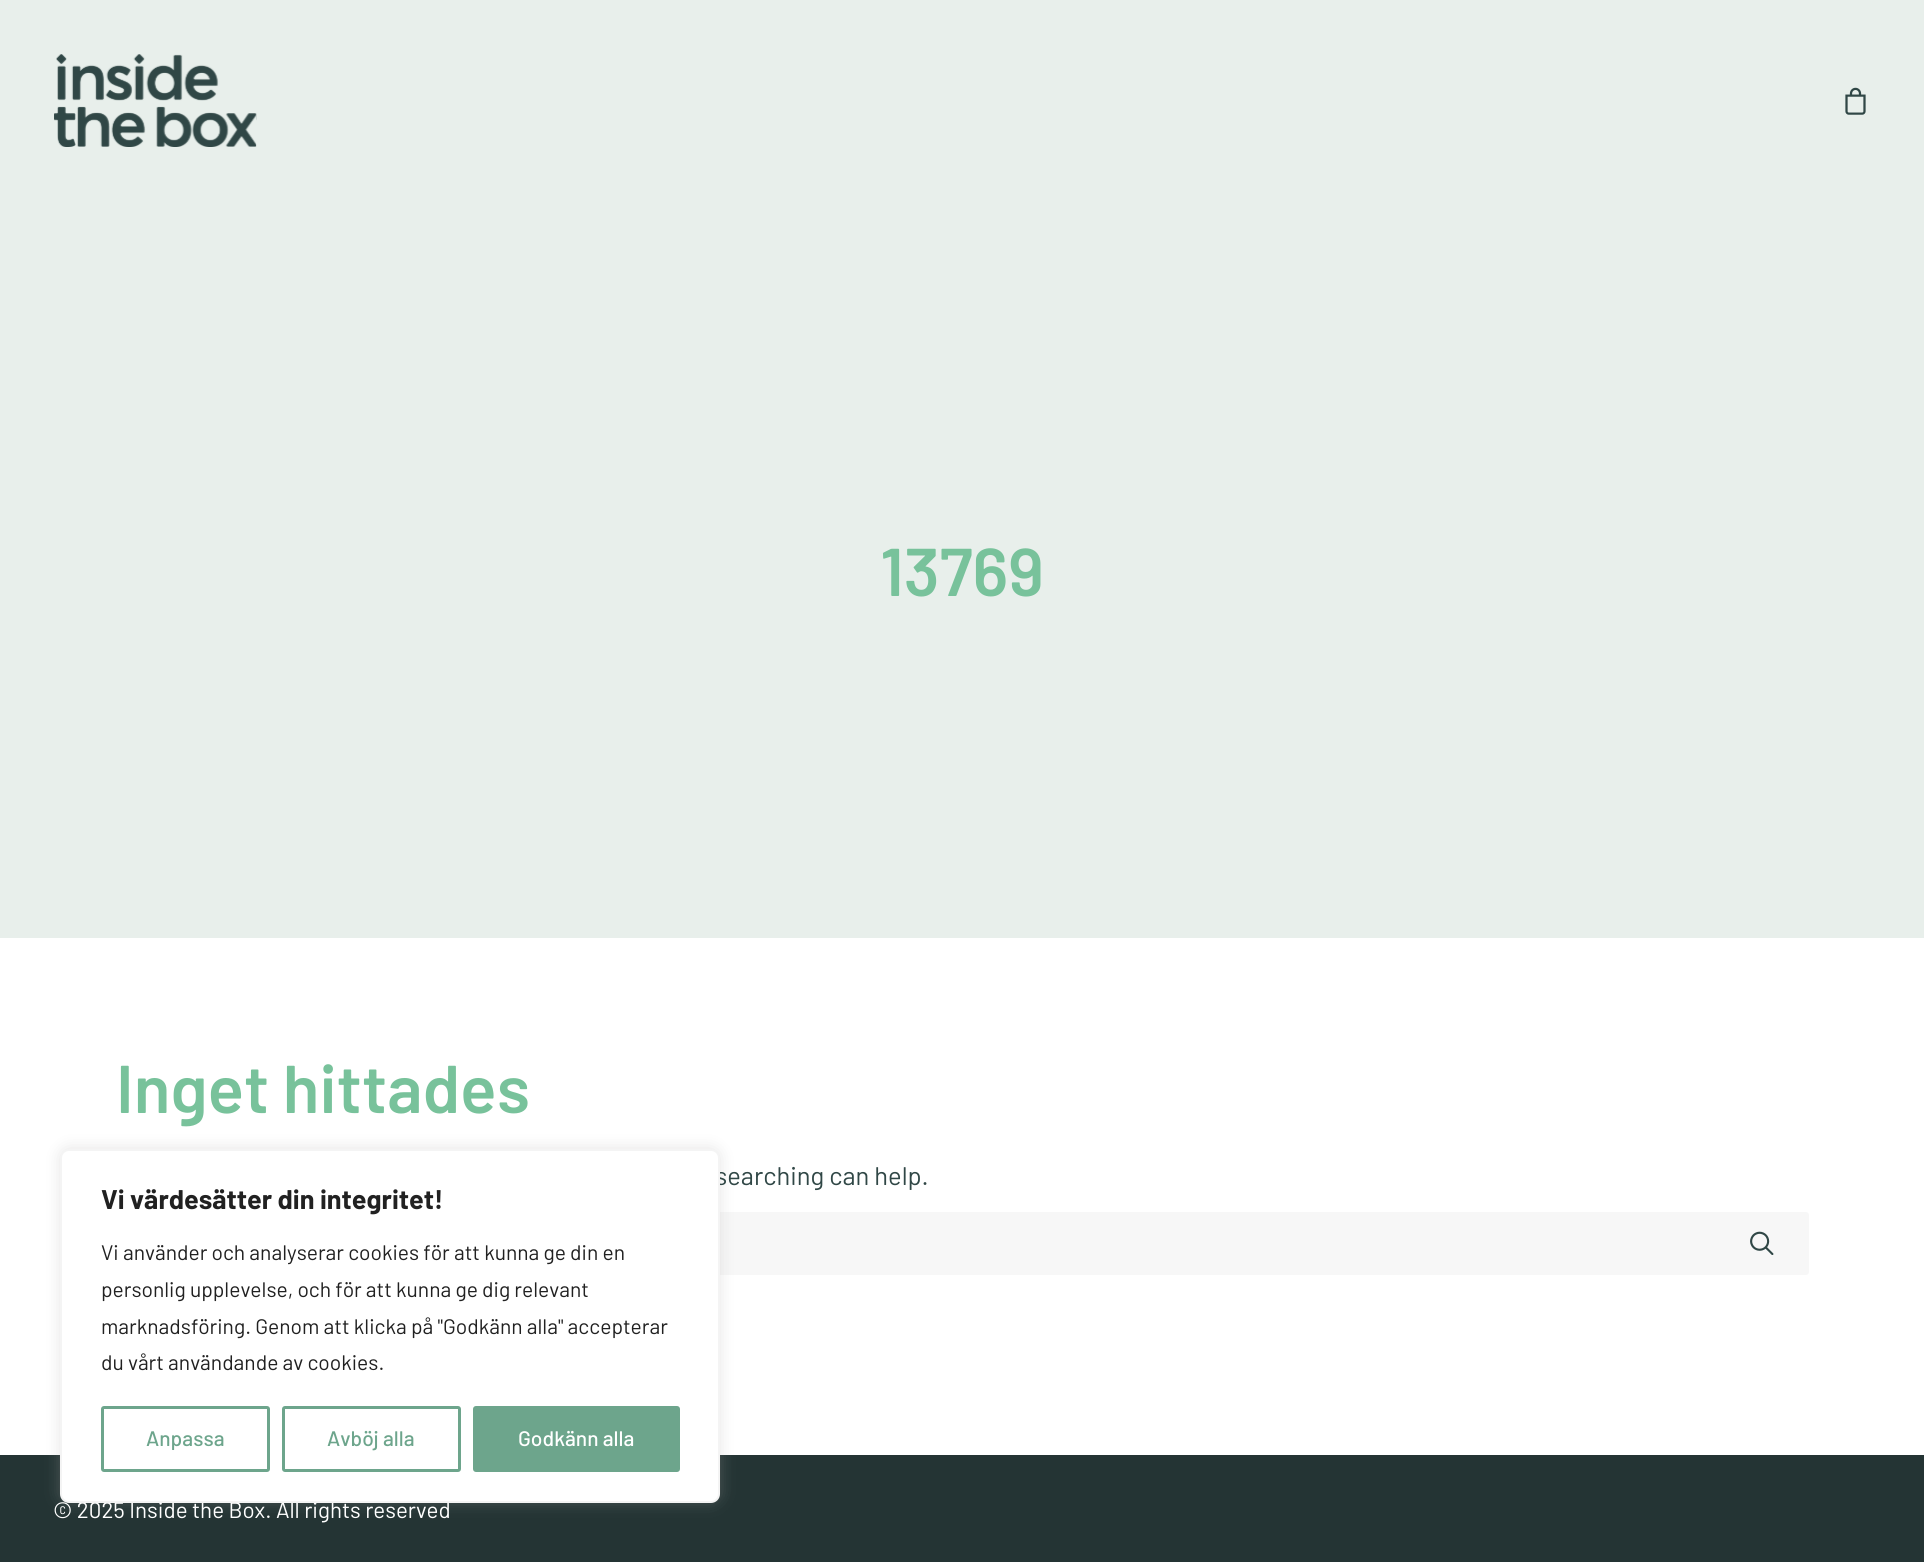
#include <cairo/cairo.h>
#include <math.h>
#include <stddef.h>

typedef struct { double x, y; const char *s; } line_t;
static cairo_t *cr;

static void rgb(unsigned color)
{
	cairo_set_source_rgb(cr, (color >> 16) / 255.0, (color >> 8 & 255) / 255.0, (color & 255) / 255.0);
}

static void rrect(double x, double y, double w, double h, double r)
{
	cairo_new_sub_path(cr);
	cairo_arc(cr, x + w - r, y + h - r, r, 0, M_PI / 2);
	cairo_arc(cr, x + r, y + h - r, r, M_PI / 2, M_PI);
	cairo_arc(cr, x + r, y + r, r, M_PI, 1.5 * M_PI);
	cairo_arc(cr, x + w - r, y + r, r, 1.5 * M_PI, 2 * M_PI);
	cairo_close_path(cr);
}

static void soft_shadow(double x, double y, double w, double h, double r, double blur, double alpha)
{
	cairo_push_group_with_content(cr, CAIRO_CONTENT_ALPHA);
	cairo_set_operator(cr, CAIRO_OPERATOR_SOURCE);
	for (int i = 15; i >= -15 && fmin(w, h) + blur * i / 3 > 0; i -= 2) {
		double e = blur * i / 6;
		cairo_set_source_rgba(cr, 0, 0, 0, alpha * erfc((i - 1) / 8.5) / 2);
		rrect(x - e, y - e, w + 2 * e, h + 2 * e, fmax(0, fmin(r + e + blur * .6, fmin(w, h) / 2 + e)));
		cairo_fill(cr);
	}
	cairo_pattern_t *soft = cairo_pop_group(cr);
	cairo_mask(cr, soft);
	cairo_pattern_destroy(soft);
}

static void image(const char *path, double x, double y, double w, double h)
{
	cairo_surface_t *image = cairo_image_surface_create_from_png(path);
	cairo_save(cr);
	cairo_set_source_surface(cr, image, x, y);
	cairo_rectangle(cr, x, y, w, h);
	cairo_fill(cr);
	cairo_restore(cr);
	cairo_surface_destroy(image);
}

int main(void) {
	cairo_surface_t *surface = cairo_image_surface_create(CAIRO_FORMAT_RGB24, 1924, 1562);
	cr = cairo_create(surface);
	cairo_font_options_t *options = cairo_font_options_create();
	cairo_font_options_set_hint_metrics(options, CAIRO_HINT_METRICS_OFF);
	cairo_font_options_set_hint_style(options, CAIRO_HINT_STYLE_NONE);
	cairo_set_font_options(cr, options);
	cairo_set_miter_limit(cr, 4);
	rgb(0xe8efeb);
	cairo_paint(cr);
	image("img/1.png", 54, 54, 203, 93);
	image("img/2.png", 1845, 87, 21, 28);
	rgb(0xffffff);
	cairo_rectangle(cr, 0, 938, 1924, 517);
	cairo_fill(cr);
	rgb(0xf7f7f7);
	rrect(117, 1212, 1692, 63, 3);
	cairo_fill(cr);
	image("img/3.png", 1750, 1231, 24, 24);
	rgb(0x243434);
	cairo_rectangle(cr, 0, 1455, 1924, 107);
	cairo_fill(cr);
	rgb(0xacabab);
	soft_shadow(60, 1148, 660, 354, 9, 7.5, 0.3);
	cairo_select_font_face(cr, "Barlow SemiBold", CAIRO_FONT_SLANT_NORMAL, CAIRO_FONT_WEIGHT_NORMAL);
	cairo_set_font_size(cr, 67.5);
	rgb(0x78c29b);
	cairo_move_to(cr, 880, 596);
	cairo_show_text(cr, "13769");
	cairo_move_to(cr, 116, 1113);
	cairo_show_text(cr, "Inget hittades");
	cairo_select_font_face(cr, "Barlow", CAIRO_FONT_SLANT_NORMAL, CAIRO_FONT_WEIGHT_NORMAL);
	cairo_set_font_size(cr, 25.5);
	rgb(0x304746);
	cairo_move_to(cr, 715, 1185);
	cairo_show_text(cr, "searching can help.");
	cairo_set_font_size(cr, 22.3);
	rgb(0xffffff);
	cairo_move_to(cr, 53, 1518);
	cairo_show_text(cr, "© 2025 Inside the Box. All rights reserved");
	rrect(61, 1150, 658, 352, 8);
	cairo_fill_preserve(cr);
	rgb(0xf4f4f4);
	cairo_stroke(cr);
	cairo_select_font_face(cr, "Barlow", CAIRO_FONT_SLANT_NORMAL, CAIRO_FONT_WEIGHT_BOLD);
	cairo_set_font_size(cr, 27);
	rgb(0x212121);
	cairo_move_to(cr, 101, 1209);
	cairo_show_text(cr, "Vi värdesätter din integritet!");
	cairo_select_font_face(cr, "Barlow", CAIRO_FONT_SLANT_NORMAL, CAIRO_FONT_WEIGHT_NORMAL);
	cairo_set_font_size(cr, 21);
	{
		static const line_t items[] = {
			{101, 1260, "Vi använder och analyserar cookies för att kunna ge din en"},
			{101, 1297, "personlig upplevelse, och för att kunna ge dig relevant"},
			{101, 1334, "marknadsföring. Genom att klicka på \"Godkänn alla\" accepterar"},
			{101, 1370, "du vårt användande av cookies."},
		};
		for (size_t i = 0; i < sizeof items / sizeof *items; i++) {
			cairo_move_to(cr, items[i].x, items[i].y);
			cairo_show_text(cr, items[i].s);
		}
	}
	rrect(102.5, 1407.5, 166, 63, 1.5);
	rgb(0x6da58c);
	cairo_set_line_width(cr, 3);
	cairo_stroke(cr);
	cairo_select_font_face(cr, "Barlow Medium", CAIRO_FONT_SLANT_NORMAL, CAIRO_FONT_WEIGHT_NORMAL);
	cairo_move_to(cr, 146, 1446);
	cairo_show_text(cr, "Anpassa");
	rrect(283.5, 1407.5, 176, 63, 1.5);
	cairo_stroke(cr);
	cairo_move_to(cr, 327, 1446);
	cairo_show_text(cr, "Avböj alla");
	rrect(474.5, 1407.5, 204, 63, 1.5);
	cairo_fill_preserve(cr);
	cairo_stroke(cr);
	rgb(0xffffff);
	cairo_move_to(cr, 518, 1446);
	cairo_show_text(cr, "Godkänn alla");
	cairo_surface_write_to_png(surface, "page.png");
	cairo_font_options_destroy(options);
	cairo_destroy(cr);
	cairo_surface_destroy(surface);
	return 0;
}
